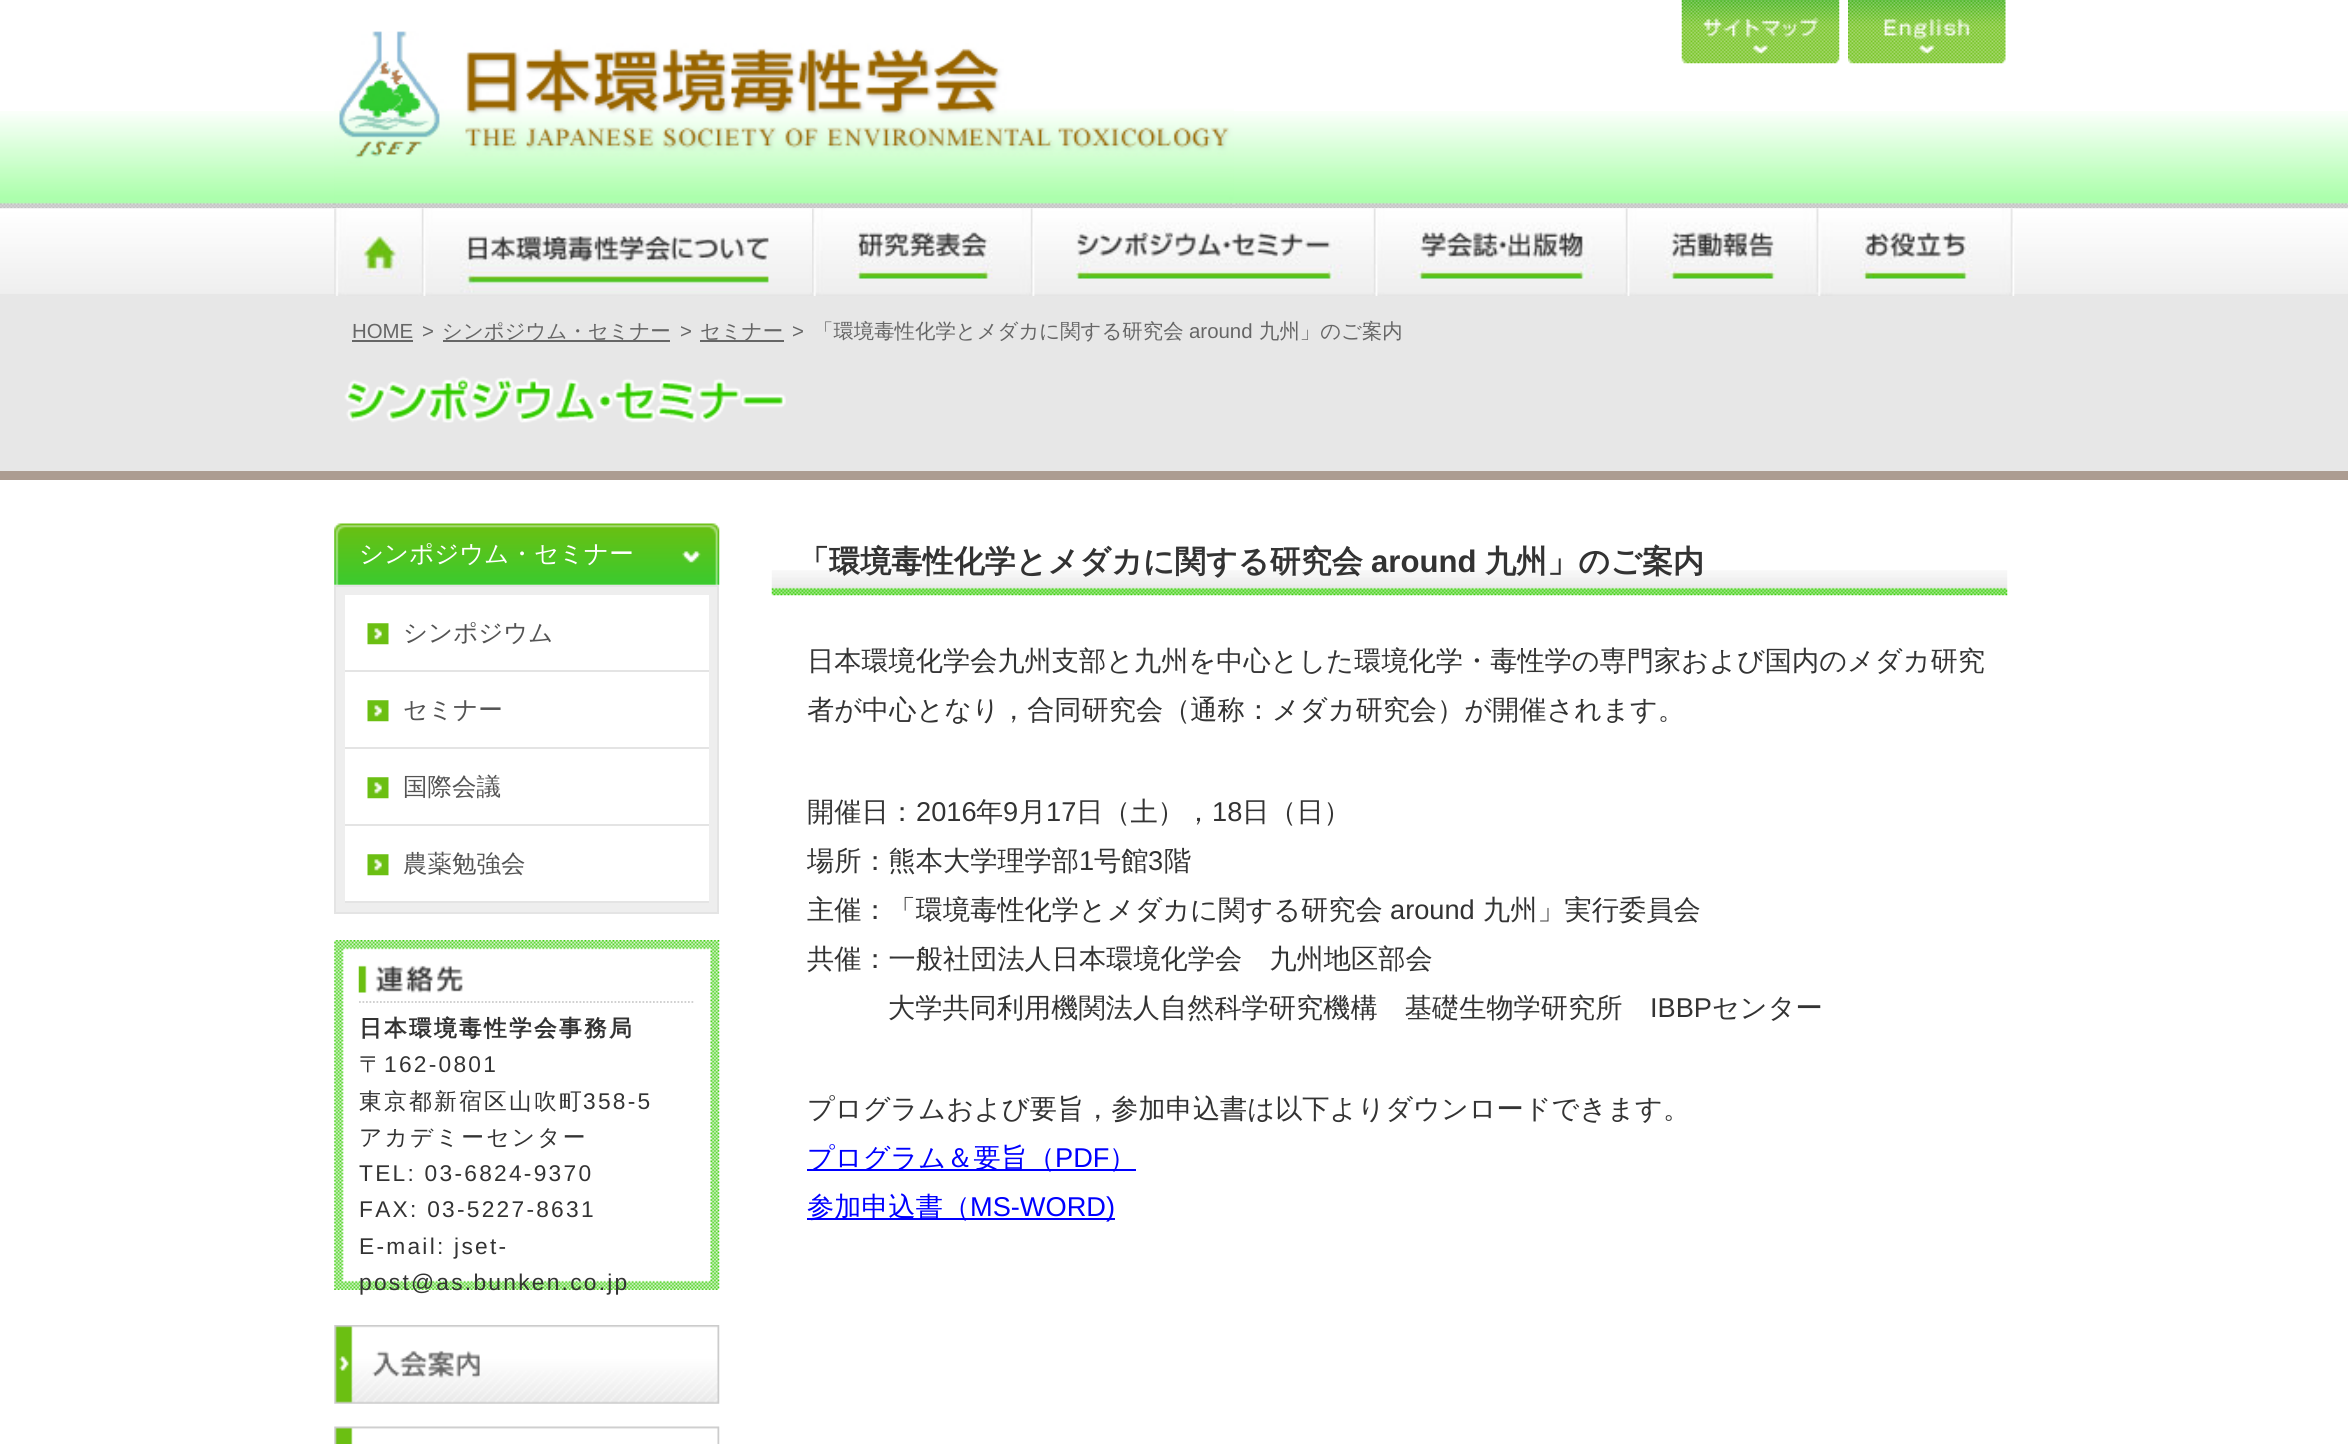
#include <cairo/cairo.h>
#include <math.h>
#include <stddef.h>

typedef struct { double x, y; const char *s; } line_t;
typedef struct { double x, y, w, h; unsigned color; } box_t;
static cairo_t *cr;

static void rgb(unsigned color)
{
	cairo_set_source_rgb(cr, (color >> 16) / 255.0, (color >> 8 & 255) / 255.0, (color & 255) / 255.0);
}

static void tracked(double x, double y, const char *s, double letter, double word)
{
	cairo_move_to(cr, x, y);
	while (*s) {
		char ch[5] = {0};
		int n = 0;
		do ch[n++] = *s++; while ((*s & 0xC0) == 0x80);
		cairo_show_text(cr, ch);
		cairo_rel_move_to(cr, letter + word * (*ch == ' '), 0);
	}
}

static void image(const char *path, double x, double y, double w, double h)
{
	cairo_surface_t *image = cairo_image_surface_create_from_png(path);
	cairo_save(cr);
	cairo_set_source_surface(cr, image, x, y);
	cairo_rectangle(cr, x, y, w, h);
	cairo_fill(cr);
	cairo_restore(cr);
	cairo_surface_destroy(image);
}

int main(void) {
	cairo_surface_t *surface = cairo_image_surface_create(CAIRO_FORMAT_RGB24, 2348, 1444);
	cr = cairo_create(surface);
	cairo_font_options_t *options = cairo_font_options_create();
	cairo_font_options_set_hint_metrics(options, CAIRO_HINT_METRICS_OFF);
	cairo_font_options_set_hint_style(options, CAIRO_HINT_STYLE_NONE);
	cairo_set_font_options(cr, options);
	cairo_set_miter_limit(cr, 4);
	rgb(0xffffff);
	cairo_paint(cr);
	image("img/1.png", 0, 111, 2348, 97);
	image("img/2.png", 334, 31, 900, 177);
	image("img/3.png", 1681, 0, 159, 64);
	image("img/4.png", 1848, 0, 158, 64);
	rgb(0xe7e7e7);
	cairo_rectangle(cr, 0, 208, 2348, 263);
	cairo_fill(cr);
	image("img/5.png", 0, 208, 2348, 86);
	rgb(0xac9c91);
	cairo_rectangle(cr, 0, 471, 2348, 9);
	cairo_fill(cr);
	image("img/6.png", 334, 208, 88, 88);
	image("img/7.png", 421, 208, 391, 88);
	image("img/8.png", 812, 208, 219, 88);
	image("img/9.png", 1030, 208, 344, 88);
	image("img/10.png", 1373, 208, 253, 88);
	image("img/11.png", 1625, 208, 191, 88);
	image("img/12.png", 1816, 208, 199, 88);
	{
		static const box_t items[] = {
			{352, 340, 61, 2, 0x666666},
			{443, 340, 227, 2, 0x666666},
			{700, 340, 84, 2, 0x666666},
		};
		for (size_t i = 0; i < sizeof items / sizeof *items; i++) {
			rgb(items[i].color);
			cairo_rectangle(cr, items[i].x, items[i].y, items[i].w, items[i].h);
			cairo_fill(cr);
		}
	}
	image("img/13.png", 344, 376, 442, 47);
	image("img/14.png", 334, 523, 386, 62);
	rgb(0xeeeeee);
	cairo_rectangle(cr, 335, 586, 383, 327);
	cairo_fill_preserve(cr);
	rgb(0xe4e4e4);
	cairo_stroke(cr);
	rgb(0xffffff);
	cairo_rectangle(cr, 345, 595, 364, 75);
	cairo_fill(cr);
	image("img/15.png", 367, 623, 22, 22);
	rgb(0xe4e4e4);
	cairo_rectangle(cr, 345, 670, 364, 2);
	cairo_fill(cr);
	rgb(0xffffff);
	cairo_rectangle(cr, 345, 672, 364, 75);
	cairo_fill(cr);
	image("img/15.png", 367, 700, 22, 22);
	rgb(0xe4e4e4);
	cairo_rectangle(cr, 345, 747, 364, 2);
	cairo_fill(cr);
	rgb(0xffffff);
	cairo_rectangle(cr, 345, 749, 364, 75);
	cairo_fill(cr);
	image("img/15.png", 367, 777, 22, 22);
	rgb(0xe4e4e4);
	cairo_rectangle(cr, 345, 824, 364, 2);
	cairo_fill(cr);
	rgb(0xffffff);
	cairo_rectangle(cr, 345, 826, 364, 75);
	cairo_fill(cr);
	image("img/15.png", 367, 854, 22, 22);
	rgb(0xe4e4e4);
	cairo_rectangle(cr, 345, 901, 364, 2);
	cairo_fill(cr);
	image("img/16.png", 334, 940, 386, 350);
	image("img/17.png", 358, 965, 105, 28);
	cairo_new_path(cr);
	cairo_move_to(cr, 359, 1002);
	cairo_line_to(cr, 695, 1002);
	rgb(0xcccccc);
	cairo_set_line_width(cr, 1.8);
	cairo_set_dash(cr, (double[]){1.75, 1.75}, 2, 0);
	cairo_stroke(cr);
	image("img/18.png", 334, 1325, 386, 79);
	image("img/19.png", 334, 1426, 386, 18);
	image("img/20.png", 771, 570, 1237, 26);
	rgb(0x0000ff);
	cairo_rectangle(cr, 807, 1169, 329, 2);
	cairo_fill(cr);
	cairo_rectangle(cr, 807, 1218, 308, 2);
	cairo_fill(cr);
	cairo_select_font_face(cr, "Liberation Sans", CAIRO_FONT_SLANT_NORMAL, CAIRO_FONT_WEIGHT_NORMAL);
	cairo_set_font_size(cr, 20.4);
	rgb(0x666666);
	cairo_move_to(cr, 352, 338);
	cairo_show_text(cr, "HOME");
	cairo_move_to(cr, 422, 338);
	cairo_show_text(cr, ">");
	cairo_select_font_face(cr, "WenQuanYi Zen Hei Medium", CAIRO_FONT_SLANT_NORMAL, CAIRO_FONT_WEIGHT_NORMAL);
	cairo_move_to(cr, 442, 338);
	cairo_show_text(cr, "シンポジウム・セミナー");
	cairo_select_font_face(cr, "Liberation Sans", CAIRO_FONT_SLANT_NORMAL, CAIRO_FONT_WEIGHT_NORMAL);
	cairo_move_to(cr, 680, 338);
	cairo_show_text(cr, ">");
	cairo_select_font_face(cr, "WenQuanYi Zen Hei Medium", CAIRO_FONT_SLANT_NORMAL, CAIRO_FONT_WEIGHT_NORMAL);
	cairo_move_to(cr, 700, 338);
	cairo_show_text(cr, "セミナー");
	cairo_select_font_face(cr, "Liberation Sans", CAIRO_FONT_SLANT_NORMAL, CAIRO_FONT_WEIGHT_NORMAL);
	cairo_move_to(cr, 792, 338);
	cairo_show_text(cr, ">");
	cairo_select_font_face(cr, "WenQuanYi Zen Hei Medium", CAIRO_FONT_SLANT_NORMAL, CAIRO_FONT_WEIGHT_NORMAL);
	cairo_move_to(cr, 813, 338);
	cairo_show_text(cr, "「環境毒性化学とメダカに関する研究会");
	cairo_select_font_face(cr, "Liberation Sans", CAIRO_FONT_SLANT_NORMAL, CAIRO_FONT_WEIGHT_NORMAL);
	cairo_move_to(cr, 1189, 338);
	cairo_show_text(cr, "around");
	cairo_select_font_face(cr, "WenQuanYi Zen Hei Medium", CAIRO_FONT_SLANT_NORMAL, CAIRO_FONT_WEIGHT_NORMAL);
	cairo_move_to(cr, 1259, 338);
	cairo_show_text(cr, "九州」のご案内");
	cairo_set_font_size(cr, 24.5);
	rgb(0xffffff);
	cairo_move_to(cr, 359, 562);
	cairo_show_text(cr, "シンポジウム・セミナー");
	rgb(0x545454);
	{
		static const line_t items[] = {
			{403, 641, "シンポジウム"},
			{403, 718, "セミナー"},
			{403, 795, "国際会議"},
			{403, 872, "農薬勉強会"},
		};
		for (size_t i = 0; i < sizeof items / sizeof *items; i++) {
			cairo_move_to(cr, items[i].x, items[i].y);
			cairo_show_text(cr, items[i].s);
		}
	}
	cairo_select_font_face(cr, "WenQuanYi Zen Hei", CAIRO_FONT_SLANT_NORMAL, CAIRO_FONT_WEIGHT_BOLD);
	cairo_set_font_size(cr, 22.75);
	rgb(0x333333);
	tracked(359, 1036, "日本環境毒性学会事務局", 2.25, 0);
	cairo_select_font_face(cr, "WenQuanYi Zen Hei Medium", CAIRO_FONT_SLANT_NORMAL, CAIRO_FONT_WEIGHT_NORMAL);
	tracked(359, 1072, "〒", 2.25, 0);
	cairo_select_font_face(cr, "Liberation Sans", CAIRO_FONT_SLANT_NORMAL, CAIRO_FONT_WEIGHT_NORMAL);
	tracked(384, 1072, "162-0801", 2.25, 0);
	cairo_select_font_face(cr, "WenQuanYi Zen Hei Medium", CAIRO_FONT_SLANT_NORMAL, CAIRO_FONT_WEIGHT_NORMAL);
	tracked(359, 1109, "東京都新宿区山吹町", 2.25, 0);
	cairo_select_font_face(cr, "Liberation Sans", CAIRO_FONT_SLANT_NORMAL, CAIRO_FONT_WEIGHT_NORMAL);
	tracked(583, 1109, "358-5", 2.25, 0);
	cairo_select_font_face(cr, "WenQuanYi Zen Hei Medium", CAIRO_FONT_SLANT_NORMAL, CAIRO_FONT_WEIGHT_NORMAL);
	tracked(359, 1145, "アカデミーセンター", 2.25, 0);
	cairo_select_font_face(cr, "Liberation Sans", CAIRO_FONT_SLANT_NORMAL, CAIRO_FONT_WEIGHT_NORMAL);
	{
		static const line_t items[] = {
			{359, 1181, "TEL: 03-6824-9370"},
			{359, 1217, "FAX: 03-5227-8631"},
			{359, 1254, "E-mail: jset-"},
			{359, 1290, "post@as.bunken.co.jp"},
		};
		for (size_t i = 0; i < sizeof items / sizeof *items; i++) {
			tracked(items[i].x, items[i].y, items[i].s, 2.25, 0);
		}
	}
	cairo_select_font_face(cr, "WenQuanYi Zen Hei", CAIRO_FONT_SLANT_NORMAL, CAIRO_FONT_WEIGHT_BOLD);
	cairo_set_font_size(cr, 31.1);
	cairo_move_to(cr, 798, 572);
	cairo_show_text(cr, "「環境毒性化学とメダカに関する研究会");
	cairo_select_font_face(cr, "Liberation Sans", CAIRO_FONT_SLANT_NORMAL, CAIRO_FONT_WEIGHT_BOLD);
	cairo_move_to(cr, 1371, 572);
	cairo_show_text(cr, "around");
	cairo_select_font_face(cr, "WenQuanYi Zen Hei", CAIRO_FONT_SLANT_NORMAL, CAIRO_FONT_WEIGHT_BOLD);
	cairo_move_to(cr, 1485, 572);
	cairo_show_text(cr, "九州」のご案内");
	cairo_select_font_face(cr, "WenQuanYi Zen Hei Medium", CAIRO_FONT_SLANT_NORMAL, CAIRO_FONT_WEIGHT_NORMAL);
	cairo_set_font_size(cr, 27.2);
	{
		static const line_t items[] = {
			{807, 670, "日本環境化学会九州支部と九州を中心とした環境化学・毒性学の専門家および国内のメダカ研究"},
			{807, 719, "者が中心となり，合同研究会（通称：メダカ研究会）が開催されます。"},
			{807, 821, "開催日："},
		};
		for (size_t i = 0; i < sizeof items / sizeof *items; i++) {
			cairo_move_to(cr, items[i].x, items[i].y);
			cairo_show_text(cr, items[i].s);
		}
	}
	cairo_select_font_face(cr, "Liberation Sans", CAIRO_FONT_SLANT_NORMAL, CAIRO_FONT_WEIGHT_NORMAL);
	cairo_move_to(cr, 916, 821);
	cairo_show_text(cr, "2016");
	cairo_select_font_face(cr, "WenQuanYi Zen Hei Medium", CAIRO_FONT_SLANT_NORMAL, CAIRO_FONT_WEIGHT_NORMAL);
	cairo_move_to(cr, 976, 821);
	cairo_show_text(cr, "年");
	cairo_select_font_face(cr, "Liberation Sans", CAIRO_FONT_SLANT_NORMAL, CAIRO_FONT_WEIGHT_NORMAL);
	cairo_move_to(cr, 1003, 821);
	cairo_show_text(cr, "9");
	cairo_select_font_face(cr, "WenQuanYi Zen Hei Medium", CAIRO_FONT_SLANT_NORMAL, CAIRO_FONT_WEIGHT_NORMAL);
	cairo_move_to(cr, 1019, 821);
	cairo_show_text(cr, "月");
	cairo_select_font_face(cr, "Liberation Sans", CAIRO_FONT_SLANT_NORMAL, CAIRO_FONT_WEIGHT_NORMAL);
	cairo_move_to(cr, 1046, 821);
	cairo_show_text(cr, "17");
	cairo_select_font_face(cr, "WenQuanYi Zen Hei Medium", CAIRO_FONT_SLANT_NORMAL, CAIRO_FONT_WEIGHT_NORMAL);
	cairo_move_to(cr, 1076, 821);
	cairo_show_text(cr, "日（土），");
	cairo_select_font_face(cr, "Liberation Sans", CAIRO_FONT_SLANT_NORMAL, CAIRO_FONT_WEIGHT_NORMAL);
	cairo_move_to(cr, 1212, 821);
	cairo_show_text(cr, "18");
	cairo_select_font_face(cr, "WenQuanYi Zen Hei Medium", CAIRO_FONT_SLANT_NORMAL, CAIRO_FONT_WEIGHT_NORMAL);
	cairo_move_to(cr, 1242, 821);
	cairo_show_text(cr, "日（日）");
	cairo_move_to(cr, 807, 870);
	cairo_show_text(cr, "場所：熊本大学理学部");
	cairo_select_font_face(cr, "Liberation Sans", CAIRO_FONT_SLANT_NORMAL, CAIRO_FONT_WEIGHT_NORMAL);
	cairo_move_to(cr, 1079, 870);
	cairo_show_text(cr, "1");
	cairo_select_font_face(cr, "WenQuanYi Zen Hei Medium", CAIRO_FONT_SLANT_NORMAL, CAIRO_FONT_WEIGHT_NORMAL);
	cairo_move_to(cr, 1094, 870);
	cairo_show_text(cr, "号館");
	cairo_select_font_face(cr, "Liberation Sans", CAIRO_FONT_SLANT_NORMAL, CAIRO_FONT_WEIGHT_NORMAL);
	cairo_move_to(cr, 1148, 870);
	cairo_show_text(cr, "3");
	cairo_select_font_face(cr, "WenQuanYi Zen Hei Medium", CAIRO_FONT_SLANT_NORMAL, CAIRO_FONT_WEIGHT_NORMAL);
	cairo_move_to(cr, 1164, 870);
	cairo_show_text(cr, "階");
	cairo_move_to(cr, 807, 919);
	cairo_show_text(cr, "主催：「環境毒性化学とメダカに関する研究会");
	cairo_select_font_face(cr, "Liberation Sans", CAIRO_FONT_SLANT_NORMAL, CAIRO_FONT_WEIGHT_NORMAL);
	cairo_move_to(cr, 1390, 919);
	cairo_show_text(cr, "around");
	cairo_select_font_face(cr, "WenQuanYi Zen Hei Medium", CAIRO_FONT_SLANT_NORMAL, CAIRO_FONT_WEIGHT_NORMAL);
	{
		static const line_t items[] = {
			{1483, 919, "九州」実行委員会"},
			{807, 968, "共催：一般社団法人日本環境化学会　九州地区部会"},
			{888, 1017, "大学共同利用機関法人自然科学研究機構　基礎生物学研究所"},
		};
		for (size_t i = 0; i < sizeof items / sizeof *items; i++) {
			cairo_move_to(cr, items[i].x, items[i].y);
			cairo_show_text(cr, items[i].s);
		}
	}
	cairo_select_font_face(cr, "Liberation Sans", CAIRO_FONT_SLANT_NORMAL, CAIRO_FONT_WEIGHT_NORMAL);
	cairo_move_to(cr, 1650, 1017);
	cairo_show_text(cr, "IBBP");
	cairo_select_font_face(cr, "WenQuanYi Zen Hei Medium", CAIRO_FONT_SLANT_NORMAL, CAIRO_FONT_WEIGHT_NORMAL);
	cairo_move_to(cr, 1712, 1017);
	cairo_show_text(cr, "センター");
	cairo_move_to(cr, 807, 1118);
	cairo_show_text(cr, "プログラムおよび要旨，参加申込書は以下よりダウンロードできます。");
	rgb(0x0000ff);
	cairo_move_to(cr, 807, 1167);
	cairo_show_text(cr, "プログラム＆要旨（");
	cairo_select_font_face(cr, "Liberation Sans", CAIRO_FONT_SLANT_NORMAL, CAIRO_FONT_WEIGHT_NORMAL);
	cairo_move_to(cr, 1055, 1167);
	cairo_show_text(cr, "PDF");
	cairo_select_font_face(cr, "WenQuanYi Zen Hei Medium", CAIRO_FONT_SLANT_NORMAL, CAIRO_FONT_WEIGHT_NORMAL);
	cairo_move_to(cr, 1109, 1167);
	cairo_show_text(cr, "）");
	cairo_move_to(cr, 807, 1216);
	cairo_show_text(cr, "参加申込書（");
	cairo_select_font_face(cr, "Liberation Sans", CAIRO_FONT_SLANT_NORMAL, CAIRO_FONT_WEIGHT_NORMAL);
	cairo_move_to(cr, 970, 1216);
	cairo_show_text(cr, "MS-WORD)");
	cairo_surface_write_to_png(surface, "page.png");
	cairo_font_options_destroy(options);
	cairo_destroy(cr);
	cairo_surface_destroy(surface);
	return 0;
}
